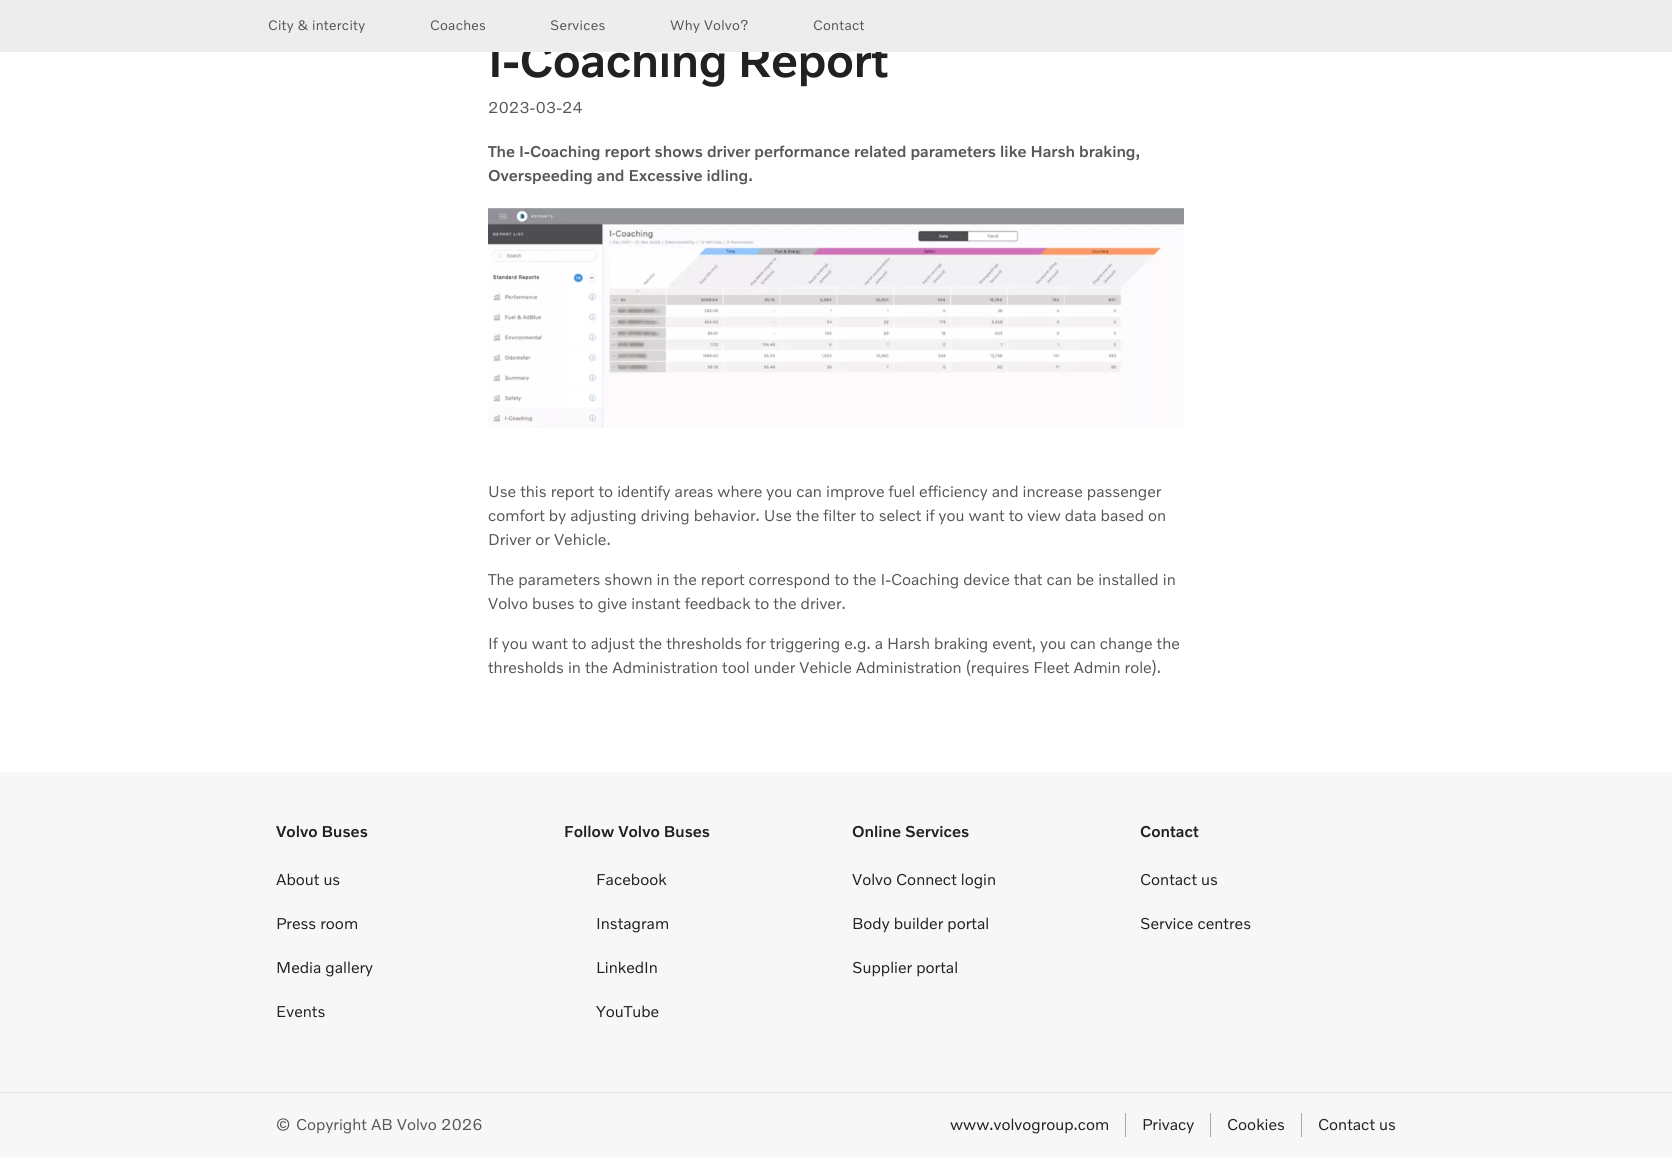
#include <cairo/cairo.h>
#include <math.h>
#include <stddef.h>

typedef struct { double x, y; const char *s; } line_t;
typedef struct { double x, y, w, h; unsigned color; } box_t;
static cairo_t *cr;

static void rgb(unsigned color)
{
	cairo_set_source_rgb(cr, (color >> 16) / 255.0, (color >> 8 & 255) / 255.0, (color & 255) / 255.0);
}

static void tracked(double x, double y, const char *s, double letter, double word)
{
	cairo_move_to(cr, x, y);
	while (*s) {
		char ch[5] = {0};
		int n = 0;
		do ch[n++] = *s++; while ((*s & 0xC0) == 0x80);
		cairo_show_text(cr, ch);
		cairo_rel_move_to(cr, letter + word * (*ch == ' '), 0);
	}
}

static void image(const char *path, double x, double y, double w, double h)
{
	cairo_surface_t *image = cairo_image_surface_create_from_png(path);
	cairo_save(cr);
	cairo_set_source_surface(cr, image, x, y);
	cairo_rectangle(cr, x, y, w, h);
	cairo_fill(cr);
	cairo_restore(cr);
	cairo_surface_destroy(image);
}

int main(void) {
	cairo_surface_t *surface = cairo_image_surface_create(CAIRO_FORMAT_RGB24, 1672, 1157);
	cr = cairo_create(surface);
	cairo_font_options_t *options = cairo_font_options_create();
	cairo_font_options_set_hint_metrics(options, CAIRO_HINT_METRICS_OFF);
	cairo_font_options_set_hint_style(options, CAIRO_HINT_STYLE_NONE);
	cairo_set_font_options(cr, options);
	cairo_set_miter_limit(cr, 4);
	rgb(0xffffff);
	cairo_paint(cr);
	image("img/1.png", 488, 208, 696, 220);
	{
		static const box_t items[] = {
			{0, 772, 1672, 385, 0xf7f7f7},
			{0, 1092, 1672, 1, 0xe1e1e1},
			{1125, 1113, 1, 24, 0xa9a9a9},
			{1210, 1113, 1, 24, 0xa9a9a9},
			{1301, 1113, 1, 24, 0xa9a9a9},
		};
		for (size_t i = 0; i < sizeof items / sizeof *items; i++) {
			rgb(items[i].color);
			cairo_rectangle(cr, items[i].x, items[i].y, items[i].w, items[i].h);
			cairo_fill(cr);
		}
	}
	cairo_select_font_face(cr, "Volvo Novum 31", CAIRO_FONT_SLANT_NORMAL, CAIRO_FONT_WEIGHT_BOLD);
	cairo_set_font_size(cr, 48);
	rgb(0x212121);
	tracked(488, 77, "I-Coaching Report", -0.5, -1);
	rgb(0xededed);
	cairo_rectangle(cr, 0, 0, 1672, 52);
	cairo_fill(cr);
	cairo_select_font_face(cr, "Volvo Novum 31", CAIRO_FONT_SLANT_NORMAL, CAIRO_FONT_WEIGHT_NORMAL);
	cairo_set_font_size(cr, 14);
	rgb(0x575757);
	{
		static const line_t items[] = {
			{813, 30, "Contact"},
			{670, 30, "Why Volvo?"},
			{550, 30, "Services"},
			{430, 30, "Coaches"},
			{268, 30, "City & intercity"},
		};
		for (size_t i = 0; i < sizeof items / sizeof *items; i++) {
			tracked(items[i].x, items[i].y, items[i].s, 0.25, 0);
		}
	}
	cairo_set_font_size(cr, 16);
	cairo_move_to(cr, 488, 113);
	cairo_show_text(cr, "2023-03-24");
	cairo_select_font_face(cr, "Volvo Novum 31", CAIRO_FONT_SLANT_NORMAL, CAIRO_FONT_WEIGHT_BOLD);
	cairo_move_to(cr, 488, 157);
	cairo_show_text(cr, "The I-Coaching report shows driver performance related parameters like Harsh braking,");
	cairo_move_to(cr, 488, 181);
	cairo_show_text(cr, "Overspeeding and Excessive idling.");
	cairo_select_font_face(cr, "Volvo Novum 31", CAIRO_FONT_SLANT_NORMAL, CAIRO_FONT_WEIGHT_NORMAL);
	{
		static const line_t items[] = {
			{488, 497, "Use this report to identify areas where you can improve fuel efficiency and increase passenger"},
			{488, 521, "comfort by adjusting driving behavior. Use the filter to select if you want to view data based on"},
			{488, 545, "Driver or Vehicle."},
			{488, 585, "The parameters shown in the report correspond to the I-Coaching device that can be installed in"},
			{488, 609, "Volvo buses to give instant feedback to the driver."},
			{488, 649, "If you want to adjust the thresholds for triggering e.g. a Harsh braking event, you can change the"},
			{488, 673, "thresholds in the Administration tool under Vehicle Administration (requires Fleet Admin role)."},
		};
		for (size_t i = 0; i < sizeof items / sizeof *items; i++) {
			cairo_move_to(cr, items[i].x, items[i].y);
			cairo_show_text(cr, items[i].s);
		}
	}
	cairo_select_font_face(cr, "Volvo Novum 31", CAIRO_FONT_SLANT_NORMAL, CAIRO_FONT_WEIGHT_BOLD);
	rgb(0x212121);
	cairo_move_to(cr, 276, 837);
	cairo_show_text(cr, "Volvo Buses");
	cairo_select_font_face(cr, "Volvo Novum 31", CAIRO_FONT_SLANT_NORMAL, CAIRO_FONT_WEIGHT_NORMAL);
	{
		static const line_t items[] = {
			{276, 885, "About us"},
			{276, 929, "Press room"},
			{276, 973, "Media gallery"},
			{276, 1017, "Events"},
		};
		for (size_t i = 0; i < sizeof items / sizeof *items; i++) {
			cairo_move_to(cr, items[i].x, items[i].y);
			cairo_show_text(cr, items[i].s);
		}
	}
	cairo_select_font_face(cr, "Volvo Novum 31", CAIRO_FONT_SLANT_NORMAL, CAIRO_FONT_WEIGHT_BOLD);
	cairo_move_to(cr, 564, 837);
	cairo_show_text(cr, "Follow Volvo Buses");
	cairo_select_font_face(cr, "Volvo Novum 31", CAIRO_FONT_SLANT_NORMAL, CAIRO_FONT_WEIGHT_NORMAL);
	{
		static const line_t items[] = {
			{596, 885, "Facebook"},
			{596, 929, "Instagram"},
			{596, 973, "LinkedIn"},
			{596, 1017, "YouTube"},
		};
		for (size_t i = 0; i < sizeof items / sizeof *items; i++) {
			cairo_move_to(cr, items[i].x, items[i].y);
			cairo_show_text(cr, items[i].s);
		}
	}
	cairo_select_font_face(cr, "Volvo Novum 31", CAIRO_FONT_SLANT_NORMAL, CAIRO_FONT_WEIGHT_BOLD);
	cairo_move_to(cr, 852, 837);
	cairo_show_text(cr, "Online Services");
	cairo_select_font_face(cr, "Volvo Novum 31", CAIRO_FONT_SLANT_NORMAL, CAIRO_FONT_WEIGHT_NORMAL);
	{
		static const line_t items[] = {
			{852, 885, "Volvo Connect login"},
			{852, 929, "Body builder portal"},
			{852, 973, "Supplier portal"},
		};
		for (size_t i = 0; i < sizeof items / sizeof *items; i++) {
			cairo_move_to(cr, items[i].x, items[i].y);
			cairo_show_text(cr, items[i].s);
		}
	}
	cairo_select_font_face(cr, "Volvo Novum 31", CAIRO_FONT_SLANT_NORMAL, CAIRO_FONT_WEIGHT_BOLD);
	cairo_move_to(cr, 1140, 837);
	cairo_show_text(cr, "Contact");
	cairo_select_font_face(cr, "Volvo Novum 31", CAIRO_FONT_SLANT_NORMAL, CAIRO_FONT_WEIGHT_NORMAL);
	cairo_move_to(cr, 1140, 885);
	cairo_show_text(cr, "Contact us");
	cairo_move_to(cr, 1140, 929);
	cairo_show_text(cr, "Service centres");
	rgb(0x575757);
	{
		static const line_t items[] = {
			{276, 1130, "©"},
			{296, 1130, "Copyright AB Volvo"},
			{441, 1130, "2026"},
		};
		for (size_t i = 0; i < sizeof items / sizeof *items; i++) {
			cairo_move_to(cr, items[i].x, items[i].y);
			cairo_show_text(cr, items[i].s);
		}
	}
	rgb(0x212121);
	{
		static const line_t items[] = {
			{950, 1130, "www.volvogroup.com"},
			{1142, 1130, "Privacy"},
			{1227, 1130, "Cookies"},
			{1318, 1130, "Contact us"},
		};
		for (size_t i = 0; i < sizeof items / sizeof *items; i++) {
			cairo_move_to(cr, items[i].x, items[i].y);
			cairo_show_text(cr, items[i].s);
		}
	}
	cairo_surface_write_to_png(surface, "page.png");
	cairo_font_options_destroy(options);
	cairo_destroy(cr);
	cairo_surface_destroy(surface);
	return 0;
}
